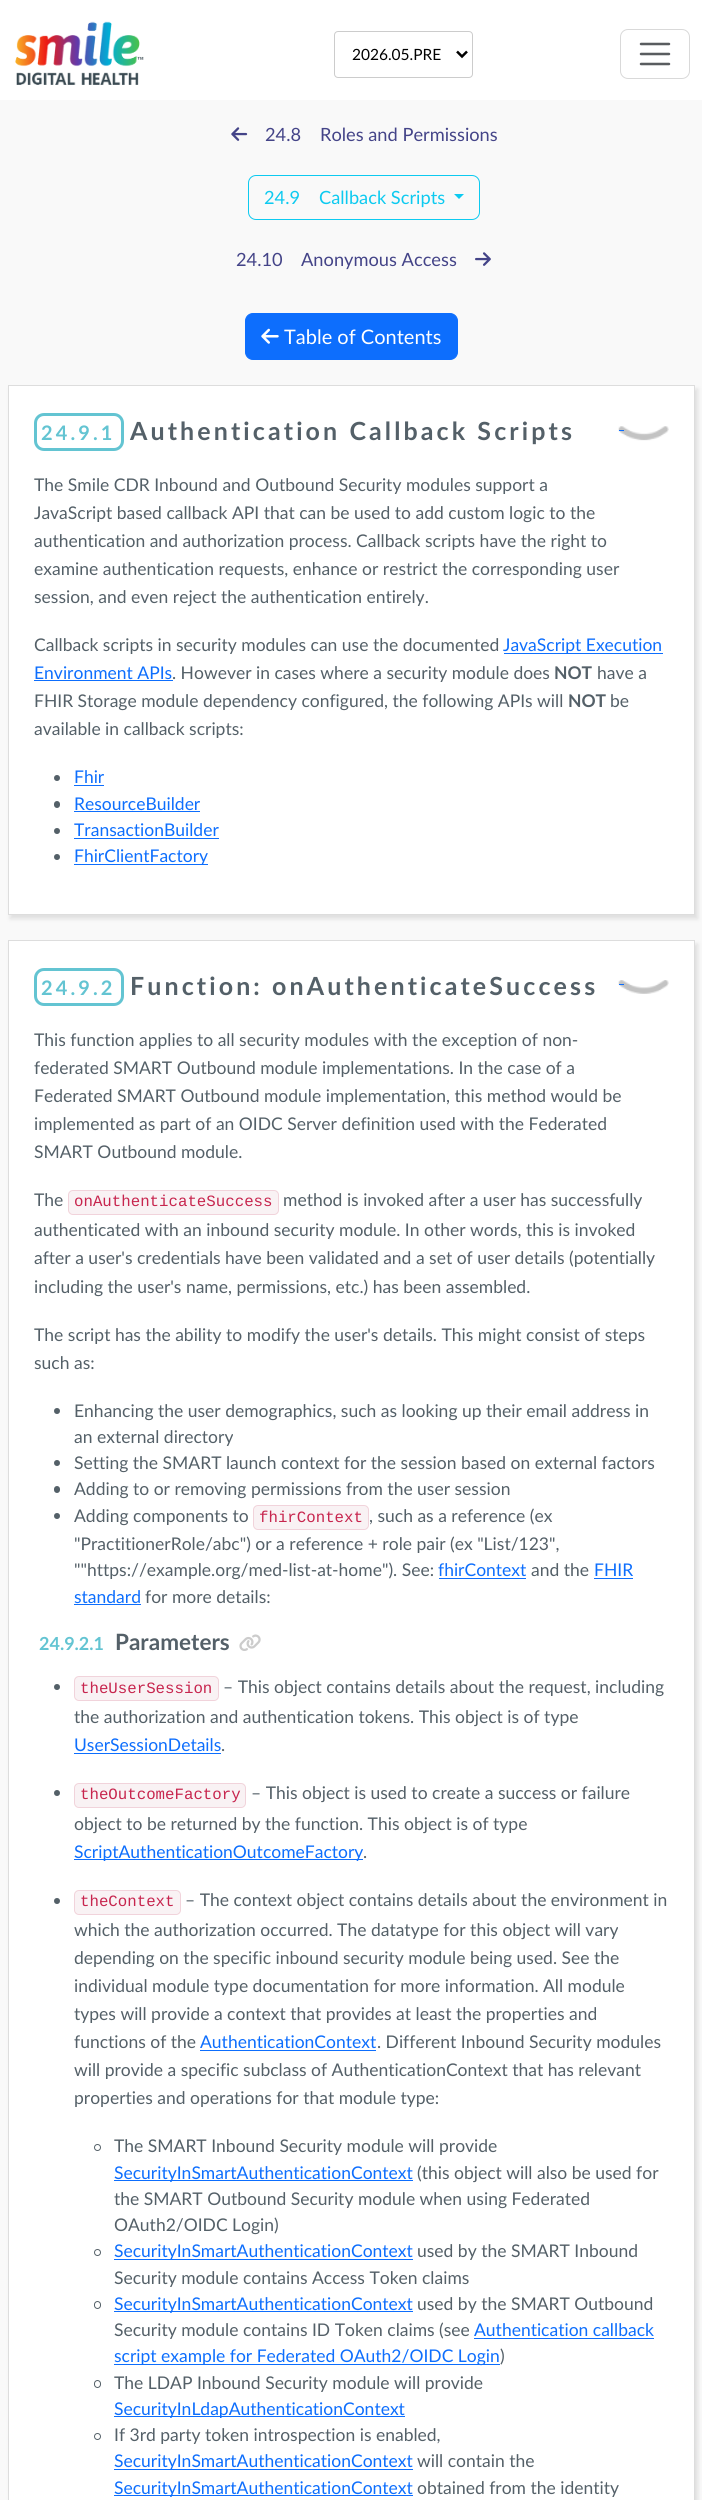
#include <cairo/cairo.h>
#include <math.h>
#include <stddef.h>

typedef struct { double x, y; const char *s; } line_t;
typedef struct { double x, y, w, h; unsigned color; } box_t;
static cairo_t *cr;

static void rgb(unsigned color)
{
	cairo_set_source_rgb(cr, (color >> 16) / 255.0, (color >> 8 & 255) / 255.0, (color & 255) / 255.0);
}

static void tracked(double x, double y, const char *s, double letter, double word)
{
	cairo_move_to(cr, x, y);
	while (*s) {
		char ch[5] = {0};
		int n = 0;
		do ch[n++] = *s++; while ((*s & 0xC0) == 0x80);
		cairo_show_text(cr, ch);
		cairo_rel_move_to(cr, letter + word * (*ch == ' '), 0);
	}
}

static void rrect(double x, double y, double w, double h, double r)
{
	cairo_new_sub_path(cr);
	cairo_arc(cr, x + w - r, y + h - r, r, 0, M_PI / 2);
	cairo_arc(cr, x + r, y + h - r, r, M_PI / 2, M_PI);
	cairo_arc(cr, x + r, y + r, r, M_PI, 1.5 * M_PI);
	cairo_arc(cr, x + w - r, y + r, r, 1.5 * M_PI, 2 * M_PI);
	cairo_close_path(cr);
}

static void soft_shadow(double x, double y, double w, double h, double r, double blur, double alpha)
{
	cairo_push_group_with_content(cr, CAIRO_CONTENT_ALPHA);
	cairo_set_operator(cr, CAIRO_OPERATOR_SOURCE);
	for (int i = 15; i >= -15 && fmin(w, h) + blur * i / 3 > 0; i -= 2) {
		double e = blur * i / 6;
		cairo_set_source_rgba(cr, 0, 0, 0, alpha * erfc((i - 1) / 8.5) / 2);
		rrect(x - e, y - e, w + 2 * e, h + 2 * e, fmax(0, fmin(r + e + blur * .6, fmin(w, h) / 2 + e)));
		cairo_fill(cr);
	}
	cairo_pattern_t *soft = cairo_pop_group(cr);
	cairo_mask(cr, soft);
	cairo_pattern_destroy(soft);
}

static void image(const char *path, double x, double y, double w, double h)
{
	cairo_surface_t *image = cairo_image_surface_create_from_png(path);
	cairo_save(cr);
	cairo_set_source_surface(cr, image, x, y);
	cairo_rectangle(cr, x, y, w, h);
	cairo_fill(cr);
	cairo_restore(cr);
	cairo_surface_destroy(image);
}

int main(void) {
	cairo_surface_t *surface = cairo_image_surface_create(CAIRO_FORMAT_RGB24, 702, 2500);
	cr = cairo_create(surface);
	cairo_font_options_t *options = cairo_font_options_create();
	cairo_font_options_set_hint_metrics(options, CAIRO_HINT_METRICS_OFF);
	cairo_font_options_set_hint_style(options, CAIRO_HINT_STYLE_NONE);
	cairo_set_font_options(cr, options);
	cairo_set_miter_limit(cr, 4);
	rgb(0xffffff);
	cairo_paint(cr);
	image("img/1.png", 15, 21, 129, 64);
	rrect(334.5, 31.5, 138, 46, 3.5);
	rgb(0xcccccc);
	cairo_set_line_width(cr, 1);
	cairo_stroke(cr);
	cairo_new_path(cr);
	cairo_move_to(cr, 457, 51.5);
	cairo_line_to(cr, 462, 56.5);
	cairo_line_to(cr, 467, 51.5);
	rgb(0x000000);
	cairo_set_line_width(cr, 2.5);
	cairo_stroke(cr);
	rrect(620.5, 29.5, 69, 49, 7.5);
	rgb(0xd9d9d9);
	cairo_set_line_width(cr, 1);
	cairo_stroke(cr);
	cairo_new_path(cr);
	cairo_move_to(cr, 641, 44);
	cairo_line_to(cr, 669, 44);
	cairo_move_to(cr, 641, 54);
	cairo_line_to(cr, 669, 54);
	cairo_move_to(cr, 641, 64);
	cairo_line_to(cr, 669, 64);
	rgb(0x595c5f);
	cairo_set_line_width(cr, 2.5);
	cairo_set_line_cap(cr, CAIRO_LINE_CAP_ROUND);
	cairo_stroke(cr);
	rgb(0xf9f9f9);
	cairo_rectangle(cr, 0, 100, 702, 2400);
	cairo_fill(cr);
	image("img/2.png", 231, 127, 17, 14);
	rrect(248.5, 175.5, 231, 44, 7.5);
	rgb(0x0dcaf0);
	cairo_set_line_width(cr, 1);
	cairo_set_line_cap(cr, CAIRO_LINE_CAP_BUTT);
	cairo_stroke(cr);
	cairo_new_path(cr);
	cairo_move_to(cr, 454, 194);
	cairo_line_to(cr, 464, 194);
	cairo_line_to(cr, 459, 199);
	cairo_close_path(cr);
	cairo_fill(cr);
	image("img/3.png", 475, 252, 16, 14);
	rgb(0x0d6efd);
	rrect(245.5, 313.5, 212, 46, 7.5);
	cairo_fill_preserve(cr);
	cairo_stroke(cr);
	image("img/4.png", 261, 328, 18, 16);
	rgb(0xe0e0e0);
	soft_shadow(10, 389, 688, 530, 0, 2, 1);
	rgb(0xffffff);
	cairo_rectangle(cr, 8.5, 385.5, 686, 529);
	cairo_fill_preserve(cr);
	rgb(0xdddddd);
	cairo_stroke(cr);
	rrect(35.5, 414.5, 87, 35, 8.5);
	rgb(0x63c4d2);
	cairo_set_line_width(cr, 3);
	cairo_stroke(cr);
	image("img/5.png", 618, 426, 51, 15);
	{
		static const box_t items[] = {
			{619, 430, 5, 1, 0x0d6efd},
			{504, 653, 159, 1, 0x0d6efd},
			{34, 680, 139, 1, 0x0d6efd},
		};
		for (size_t i = 0; i < sizeof items / sizeof *items; i++) {
			rgb(items[i].color);
			cairo_rectangle(cr, items[i].x, items[i].y, items[i].w, items[i].h);
			cairo_fill(cr);
		}
	}
	rgb(0x546068);
	cairo_arc(cr, 57, 778, 3, 0, 2 * M_PI);
	cairo_fill(cr);
	rgb(0x0d6efd);
	cairo_rectangle(cr, 74, 785, 30, 1);
	cairo_fill(cr);
	rgb(0x546068);
	rrect(54, 801, 6, 7, 3);
	cairo_fill(cr);
	rgb(0x0d6efd);
	cairo_rectangle(cr, 74, 811, 126, 1);
	cairo_fill(cr);
	rgb(0x546068);
	cairo_arc(cr, 57, 831, 3, 0, 2 * M_PI);
	cairo_fill(cr);
	rgb(0x0d6efd);
	cairo_rectangle(cr, 74, 838, 145, 1);
	cairo_fill(cr);
	rgb(0x546068);
	cairo_arc(cr, 57, 857, 3, 0, 2 * M_PI);
	cairo_fill(cr);
	rgb(0x0d6efd);
	cairo_rectangle(cr, 74, 864, 134, 1);
	cairo_fill(cr);
	rgb(0xe0e0e0);
	soft_shadow(10, 944, 688, 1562, 0, 2, 1);
	rgb(0xffffff);
	cairo_rectangle(cr, 8.5, 940.5, 686, 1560);
	cairo_fill_preserve(cr);
	rgb(0xdddddd);
	cairo_set_line_width(cr, 1);
	cairo_stroke(cr);
	rrect(35.5, 969.5, 87, 35, 8.5);
	rgb(0x63c4d2);
	cairo_set_line_width(cr, 3);
	cairo_stroke(cr);
	image("img/6.png", 618, 980, 51, 14);
	rgb(0x0d6efd);
	cairo_rectangle(cr, 619, 984, 5, 1);
	cairo_fill(cr);
	rgb(0xf9f2f4);
	rrect(68, 1190, 211, 25, 5);
	cairo_fill(cr);
	rrect(68.5, 1190.5, 210, 24, 4.5);
	cairo_set_source_rgba(cr, 0.78, 0.145, 0.306, 0.15);
	cairo_set_line_width(cr, 1);
	cairo_stroke(cr);
	rgb(0x546068);
	cairo_arc(cr, 57, 1411, 3, 0, 2 * M_PI);
	cairo_fill(cr);
	cairo_arc(cr, 57, 1463, 3, 0, 2 * M_PI);
	cairo_fill(cr);
	rrect(54, 1486, 6, 7, 3);
	cairo_fill(cr);
	cairo_arc(cr, 57, 1516, 3, 0, 2 * M_PI);
	cairo_fill(cr);
	rgb(0xf9f2f4);
	rrect(253, 1505, 116, 25, 5);
	cairo_fill(cr);
	rrect(253.5, 1505.5, 115, 24, 4.5);
	cairo_set_source_rgba(cr, 0.78, 0.145, 0.306, 0.15);
	cairo_stroke(cr);
	{
		static const box_t items[] = {
			{439, 1578, 87, 1, 0x0d6efd},
			{594, 1578, 39, 1, 0x0d6efd},
			{74, 1604, 67, 1, 0x0d6efd},
		};
		for (size_t i = 0; i < sizeof items / sizeof *items; i++) {
			rgb(items[i].color);
			cairo_rectangle(cr, items[i].x, items[i].y, items[i].w, items[i].h);
			cairo_fill(cr);
		}
	}
	image("img/7.png", 239, 1634, 22, 17);
	rgb(0x546068);
	cairo_arc(cr, 57, 1687, 3, 0, 2 * M_PI);
	cairo_fill(cr);
	rgb(0xf9f2f4);
	rrect(74, 1676, 145, 25, 5);
	cairo_fill(cr);
	rrect(74.5, 1676.5, 144, 24, 4.5);
	cairo_set_source_rgba(cr, 0.78, 0.145, 0.306, 0.15);
	cairo_stroke(cr);
	rgb(0x0d6efd);
	cairo_rectangle(cr, 74, 1753, 147, 1);
	cairo_fill(cr);
	rgb(0x546068);
	cairo_arc(cr, 57, 1793, 3, 0, 2 * M_PI);
	cairo_fill(cr);
	rgb(0xf9f2f4);
	rrect(74, 1783, 172, 25, 5);
	cairo_fill(cr);
	rrect(74.5, 1783.5, 171, 24, 4.5);
	cairo_set_source_rgba(cr, 0.78, 0.145, 0.306, 0.15);
	cairo_stroke(cr);
	rgb(0x0d6efd);
	cairo_rectangle(cr, 74, 1859, 289, 1);
	cairo_fill(cr);
	rgb(0x546068);
	cairo_arc(cr, 57, 1901, 3, 0, 2 * M_PI);
	cairo_fill(cr);
	rgb(0xf9f2f4);
	rrect(74, 1890, 107, 25, 5);
	cairo_fill(cr);
	rrect(74.5, 1890.5, 106, 24, 4.5);
	cairo_set_source_rgba(cr, 0.78, 0.145, 0.306, 0.15);
	cairo_stroke(cr);
	rgb(0x0d6efd);
	cairo_rectangle(cr, 200, 2050, 176, 1);
	cairo_fill(cr);
	cairo_arc(cr, 97.5, 2147.5, 3, 0, 2 * M_PI);
	rgb(0x546068);
	cairo_stroke(cr);
	rgb(0x0d6efd);
	cairo_rectangle(cr, 114, 2180, 299, 1);
	cairo_fill(cr);
	cairo_arc(cr, 97.5, 2252.5, 3, 0, 2 * M_PI);
	rgb(0x546068);
	cairo_stroke(cr);
	rgb(0x0d6efd);
	cairo_rectangle(cr, 114, 2259, 299, 1);
	cairo_fill(cr);
	rrect(94.5, 2301.5, 6, 7, 3);
	rgb(0x546068);
	cairo_stroke(cr);
	{
		static const box_t items[] = {
			{114, 2311, 299, 1, 0x0d6efd},
			{474, 2338, 180, 1, 0x0d6efd},
			{114, 2364, 386, 1, 0x0d6efd},
		};
		for (size_t i = 0; i < sizeof items / sizeof *items; i++) {
			rgb(items[i].color);
			cairo_rectangle(cr, items[i].x, items[i].y, items[i].w, items[i].h);
			cairo_fill(cr);
		}
	}
	rrect(94.5, 2380.5, 6, 7, 3);
	rgb(0x546068);
	cairo_stroke(cr);
	rgb(0x0d6efd);
	cairo_rectangle(cr, 114, 2416, 291, 1);
	cairo_fill(cr);
	cairo_arc(cr, 97.5, 2436.5, 3, 0, 2 * M_PI);
	rgb(0x546068);
	cairo_stroke(cr);
	rgb(0x0d6efd);
	cairo_rectangle(cr, 114, 2469, 299, 1);
	cairo_fill(cr);
	cairo_rectangle(cr, 114, 2495, 299, 1);
	cairo_fill(cr);
	cairo_select_font_face(cr, "Lato", CAIRO_FONT_SLANT_NORMAL, CAIRO_FONT_WEIGHT_NORMAL);
	cairo_set_font_size(cr, 15.5);
	rgb(0x000000);
	cairo_move_to(cr, 352, 60);
	cairo_show_text(cr, "2026.05.PRE");
	cairo_set_font_size(cr, 18.25);
	rgb(0x444488);
	cairo_move_to(cr, 265, 141);
	cairo_show_text(cr, "24.8");
	cairo_move_to(cr, 320, 141);
	cairo_show_text(cr, "Roles and Permissions");
	rgb(0x0dcaf0);
	cairo_move_to(cr, 264, 204);
	cairo_show_text(cr, "24.9");
	cairo_move_to(cr, 319, 204);
	cairo_show_text(cr, "Callback Scripts");
	rgb(0x444488);
	cairo_move_to(cr, 236, 266);
	cairo_show_text(cr, "24.10");
	cairo_move_to(cr, 301, 266);
	cairo_show_text(cr, "Anonymous Access");
	cairo_set_font_size(cr, 20);
	rgb(0xffffff);
	cairo_move_to(cr, 284, 344);
	cairo_show_text(cr, "Table of Contents");
	cairo_select_font_face(cr, "Lato", CAIRO_FONT_SLANT_NORMAL, CAIRO_FONT_WEIGHT_BOLD);
	rgb(0x63c4d2);
	tracked(41, 440, "24.9.1", 3.1, 0);
	cairo_set_font_size(cr, 25);
	rgb(0x546068);
	tracked(130, 440, "Authentication Callback Scripts", 3.1, 0);
	cairo_select_font_face(cr, "Lato", CAIRO_FONT_SLANT_NORMAL, CAIRO_FONT_WEIGHT_NORMAL);
	cairo_set_font_size(cr, 17.5);
	{
		static const line_t items[] = {
			{34, 491, "The Smile CDR Inbound and Outbound Security modules support a"},
			{34, 519, "JavaScript based callback API that can be used to add custom logic to the"},
			{34, 547, "authentication and authorization process. Callback scripts have the right to"},
			{34, 575, "examine authentication requests, enhance or restrict the corresponding user"},
			{34, 603, "session, and even reject the authentication entirely."},
			{34, 651, "Callback scripts in security modules can use the documented"},
		};
		for (size_t i = 0; i < sizeof items / sizeof *items; i++) {
			cairo_move_to(cr, items[i].x, items[i].y);
			cairo_show_text(cr, items[i].s);
		}
	}
	rgb(0x0d6efd);
	cairo_move_to(cr, 503, 651);
	cairo_show_text(cr, "JavaScript Execution");
	cairo_move_to(cr, 34, 679);
	cairo_show_text(cr, "Environment APIs");
	rgb(0x546068);
	cairo_move_to(cr, 172, 679);
	cairo_show_text(cr, ". However in cases where a security module does");
	cairo_select_font_face(cr, "Lato", CAIRO_FONT_SLANT_NORMAL, CAIRO_FONT_WEIGHT_BOLD);
	cairo_move_to(cr, 554, 679);
	cairo_show_text(cr, "NOT");
	cairo_select_font_face(cr, "Lato", CAIRO_FONT_SLANT_NORMAL, CAIRO_FONT_WEIGHT_NORMAL);
	cairo_move_to(cr, 597, 679);
	cairo_show_text(cr, "have a");
	cairo_move_to(cr, 34, 707);
	cairo_show_text(cr, "FHIR Storage module dependency configured, the following APIs will");
	cairo_select_font_face(cr, "Lato", CAIRO_FONT_SLANT_NORMAL, CAIRO_FONT_WEIGHT_BOLD);
	cairo_move_to(cr, 568, 707);
	cairo_show_text(cr, "NOT");
	cairo_select_font_face(cr, "Lato", CAIRO_FONT_SLANT_NORMAL, CAIRO_FONT_WEIGHT_NORMAL);
	cairo_move_to(cr, 610, 707);
	cairo_show_text(cr, "be");
	cairo_move_to(cr, 34, 735);
	cairo_show_text(cr, "available in callback scripts:");
	rgb(0x0d6efd);
	{
		static const line_t items[] = {
			{74, 783, "Fhir"},
			{74, 810, "ResourceBuilder"},
			{74, 836, "TransactionBuilder"},
			{74, 862, "FhirClientFactory"},
		};
		for (size_t i = 0; i < sizeof items / sizeof *items; i++) {
			cairo_move_to(cr, items[i].x, items[i].y);
			cairo_show_text(cr, items[i].s);
		}
	}
	cairo_select_font_face(cr, "Lato", CAIRO_FONT_SLANT_NORMAL, CAIRO_FONT_WEIGHT_BOLD);
	cairo_set_font_size(cr, 20);
	rgb(0x63c4d2);
	tracked(41, 995, "24.9.2", 3.1, 0);
	cairo_set_font_size(cr, 25);
	rgb(0x546068);
	tracked(130, 995, "Function: onAuthenticateSuccess", 3.1, 0);
	cairo_select_font_face(cr, "Lato", CAIRO_FONT_SLANT_NORMAL, CAIRO_FONT_WEIGHT_NORMAL);
	cairo_set_font_size(cr, 17.5);
	{
		static const line_t items[] = {
			{34, 1046, "This function applies to all security modules with the exception of non-"},
			{34, 1074, "federated SMART Outbound module implementations. In the case of a"},
			{34, 1102, "Federated SMART Outbound module implementation, this method would be"},
			{34, 1130, "implemented as part of an OIDC Server definition used with the Federated"},
			{34, 1158, "SMART Outbound module."},
			{34, 1206, "The"},
		};
		for (size_t i = 0; i < sizeof items / sizeof *items; i++) {
			cairo_move_to(cr, items[i].x, items[i].y);
			cairo_show_text(cr, items[i].s);
		}
	}
	cairo_select_font_face(cr, "Liberation Mono", CAIRO_FONT_SLANT_NORMAL, CAIRO_FONT_WEIGHT_NORMAL);
	cairo_set_font_size(cr, 15.75);
	rgb(0xc7254e);
	cairo_move_to(cr, 74, 1206);
	cairo_show_text(cr, "onAuthenticateSuccess");
	cairo_select_font_face(cr, "Lato", CAIRO_FONT_SLANT_NORMAL, CAIRO_FONT_WEIGHT_NORMAL);
	cairo_set_font_size(cr, 17.5);
	rgb(0x546068);
	{
		static const line_t items[] = {
			{283, 1206, "method is invoked after a user has successfully"},
			{34, 1236, "authenticated with an inbound security module. In other words, this is invoked"},
			{34, 1264, "after a user's credentials have been validated and a set of user details (potentially"},
			{34, 1293, "including the user's name, permissions, etc.) has been assembled."},
			{34, 1341, "The script has the ability to modify the user's details. This might consist of steps"},
			{34, 1369, "such as:"},
			{74, 1417, "Enhancing the user demographics, such as looking up their email address in"},
			{74, 1443, "an external directory"},
			{74, 1469, "Setting the SMART launch context for the session based on external factors"},
			{74, 1495, "Adding to or removing permissions from the user session"},
			{74, 1522, "Adding components to"},
		};
		for (size_t i = 0; i < sizeof items / sizeof *items; i++) {
			cairo_move_to(cr, items[i].x, items[i].y);
			cairo_show_text(cr, items[i].s);
		}
	}
	cairo_select_font_face(cr, "Liberation Mono", CAIRO_FONT_SLANT_NORMAL, CAIRO_FONT_WEIGHT_NORMAL);
	cairo_set_font_size(cr, 15.75);
	rgb(0xc7254e);
	cairo_move_to(cr, 259, 1522);
	cairo_show_text(cr, "fhirContext");
	cairo_select_font_face(cr, "Lato", CAIRO_FONT_SLANT_NORMAL, CAIRO_FONT_WEIGHT_NORMAL);
	cairo_set_font_size(cr, 17.5);
	rgb(0x546068);
	{
		static const line_t items[] = {
			{369, 1522, ", such as a reference (ex"},
			{74, 1550, "\"PractitionerRole/abc\") or a reference + role pair (ex \"List/123\","},
			{74, 1576, "\"\"https://example.org/med-list-at-home\"). See:"},
		};
		for (size_t i = 0; i < sizeof items / sizeof *items; i++) {
			cairo_move_to(cr, items[i].x, items[i].y);
			cairo_show_text(cr, items[i].s);
		}
	}
	rgb(0x0d6efd);
	cairo_move_to(cr, 438, 1576);
	cairo_show_text(cr, "fhirContext");
	rgb(0x546068);
	cairo_move_to(cr, 531, 1576);
	cairo_show_text(cr, "and the");
	rgb(0x0d6efd);
	cairo_move_to(cr, 594, 1576);
	cairo_show_text(cr, "FHIR");
	cairo_move_to(cr, 74, 1603);
	cairo_show_text(cr, "standard");
	rgb(0x546068);
	cairo_move_to(cr, 145, 1603);
	cairo_show_text(cr, "for more details:");
	cairo_select_font_face(cr, "Lato", CAIRO_FONT_SLANT_NORMAL, CAIRO_FONT_WEIGHT_BOLD);
	cairo_set_font_size(cr, 18);
	rgb(0x63c4d2);
	cairo_move_to(cr, 39, 1650);
	cairo_show_text(cr, "24.9.2.1");
	cairo_set_font_size(cr, 22.5);
	rgb(0x546068);
	cairo_move_to(cr, 115, 1650);
	cairo_show_text(cr, "Parameters");
	cairo_select_font_face(cr, "Liberation Mono", CAIRO_FONT_SLANT_NORMAL, CAIRO_FONT_WEIGHT_NORMAL);
	cairo_set_font_size(cr, 15.75);
	rgb(0xc7254e);
	cairo_move_to(cr, 80, 1693);
	cairo_show_text(cr, "theUserSession");
	cairo_select_font_face(cr, "Lato", CAIRO_FONT_SLANT_NORMAL, CAIRO_FONT_WEIGHT_NORMAL);
	cairo_set_font_size(cr, 17.5);
	rgb(0x546068);
	cairo_move_to(cr, 223, 1693);
	cairo_show_text(cr, "– This object contains details about the request, including");
	cairo_move_to(cr, 74, 1723);
	cairo_show_text(cr, "the authorization and authentication tokens. This object is of type");
	rgb(0x0d6efd);
	cairo_move_to(cr, 74, 1751);
	cairo_show_text(cr, "UserSessionDetails");
	rgb(0x546068);
	cairo_move_to(cr, 221, 1751);
	cairo_show_text(cr, ".");
	cairo_select_font_face(cr, "Liberation Mono", CAIRO_FONT_SLANT_NORMAL, CAIRO_FONT_WEIGHT_NORMAL);
	cairo_set_font_size(cr, 15.75);
	rgb(0xc7254e);
	cairo_move_to(cr, 80, 1799);
	cairo_show_text(cr, "theOutcomeFactory");
	cairo_select_font_face(cr, "Lato", CAIRO_FONT_SLANT_NORMAL, CAIRO_FONT_WEIGHT_NORMAL);
	cairo_set_font_size(cr, 17.5);
	rgb(0x546068);
	cairo_move_to(cr, 251, 1799);
	cairo_show_text(cr, "– This object is used to create a success or failure");
	cairo_move_to(cr, 74, 1830);
	cairo_show_text(cr, "object to be returned by the function. This object is of type");
	rgb(0x0d6efd);
	cairo_move_to(cr, 74, 1858);
	cairo_show_text(cr, "ScriptAuthenticationOutcomeFactory");
	rgb(0x546068);
	cairo_move_to(cr, 363, 1858);
	cairo_show_text(cr, ".");
	cairo_select_font_face(cr, "Liberation Mono", CAIRO_FONT_SLANT_NORMAL, CAIRO_FONT_WEIGHT_NORMAL);
	cairo_set_font_size(cr, 15.75);
	rgb(0xc7254e);
	cairo_move_to(cr, 80, 1906);
	cairo_show_text(cr, "theContext");
	cairo_select_font_face(cr, "Lato", CAIRO_FONT_SLANT_NORMAL, CAIRO_FONT_WEIGHT_NORMAL);
	cairo_set_font_size(cr, 17.5);
	rgb(0x546068);
	{
		static const line_t items[] = {
			{185, 1906, "– The context object contains details about the environment in"},
			{74, 1936, "which the authorization occurred. The datatype for this object will vary"},
			{74, 1964, "depending on the specific inbound security module being used. See the"},
			{74, 1992, "individual module type documentation for more information. All module"},
			{74, 2020, "types will provide a context that provides at least the properties and"},
			{74, 2048, "functions of the"},
		};
		for (size_t i = 0; i < sizeof items / sizeof *items; i++) {
			cairo_move_to(cr, items[i].x, items[i].y);
			cairo_show_text(cr, items[i].s);
		}
	}
	rgb(0x0d6efd);
	cairo_move_to(cr, 200, 2048);
	cairo_show_text(cr, "AuthenticationContext");
	rgb(0x546068);
	{
		static const line_t items[] = {
			{377, 2048, ". Different Inbound Security modules"},
			{74, 2076, "will provide a specific subclass of AuthenticationContext that has relevant"},
			{74, 2104, "properties and operations for that module type:"},
			{114, 2152, "The SMART Inbound Security module will provide"},
		};
		for (size_t i = 0; i < sizeof items / sizeof *items; i++) {
			cairo_move_to(cr, items[i].x, items[i].y);
			cairo_show_text(cr, items[i].s);
		}
	}
	rgb(0x0d6efd);
	cairo_move_to(cr, 114, 2179);
	cairo_show_text(cr, "SecurityInSmartAuthenticationContext");
	rgb(0x546068);
	{
		static const line_t items[] = {
			{417, 2179, "(this object will also be used for"},
			{114, 2205, "the SMART Outbound Security module when using Federated"},
			{114, 2231, "OAuth2/OIDC Login)"},
		};
		for (size_t i = 0; i < sizeof items / sizeof *items; i++) {
			cairo_move_to(cr, items[i].x, items[i].y);
			cairo_show_text(cr, items[i].s);
		}
	}
	rgb(0x0d6efd);
	cairo_move_to(cr, 114, 2257);
	cairo_show_text(cr, "SecurityInSmartAuthenticationContext");
	rgb(0x546068);
	cairo_move_to(cr, 417, 2257);
	cairo_show_text(cr, "used by the SMART Inbound");
	cairo_move_to(cr, 114, 2284);
	cairo_show_text(cr, "Security module contains Access Token claims");
	rgb(0x0d6efd);
	cairo_move_to(cr, 114, 2310);
	cairo_show_text(cr, "SecurityInSmartAuthenticationContext");
	rgb(0x546068);
	cairo_move_to(cr, 417, 2310);
	cairo_show_text(cr, "used by the SMART Outbound");
	cairo_move_to(cr, 114, 2336);
	cairo_show_text(cr, "Security module contains ID Token claims (see");
	rgb(0x0d6efd);
	cairo_move_to(cr, 474, 2336);
	cairo_show_text(cr, "Authentication callback");
	cairo_move_to(cr, 114, 2362);
	cairo_show_text(cr, "script example for Federated OAuth2/OIDC Login");
	rgb(0x546068);
	cairo_move_to(cr, 500, 2362);
	cairo_show_text(cr, ")");
	cairo_move_to(cr, 114, 2389);
	cairo_show_text(cr, "The LDAP Inbound Security module will provide");
	rgb(0x0d6efd);
	cairo_move_to(cr, 114, 2415);
	cairo_show_text(cr, "SecurityInLdapAuthenticationContext");
	rgb(0x546068);
	cairo_move_to(cr, 114, 2441);
	cairo_show_text(cr, "If 3rd party token introspection is enabled,");
	rgb(0x0d6efd);
	cairo_move_to(cr, 114, 2467);
	cairo_show_text(cr, "SecurityInSmartAuthenticationContext");
	rgb(0x546068);
	cairo_move_to(cr, 417, 2467);
	cairo_show_text(cr, "will contain the");
	rgb(0x0d6efd);
	cairo_move_to(cr, 114, 2494);
	cairo_show_text(cr, "SecurityInSmartAuthenticationContext");
	rgb(0x546068);
	cairo_move_to(cr, 417, 2494);
	cairo_show_text(cr, "obtained from the identity");
	cairo_surface_write_to_png(surface, "page.png");
	cairo_font_options_destroy(options);
	cairo_destroy(cr);
	cairo_surface_destroy(surface);
	return 0;
}
